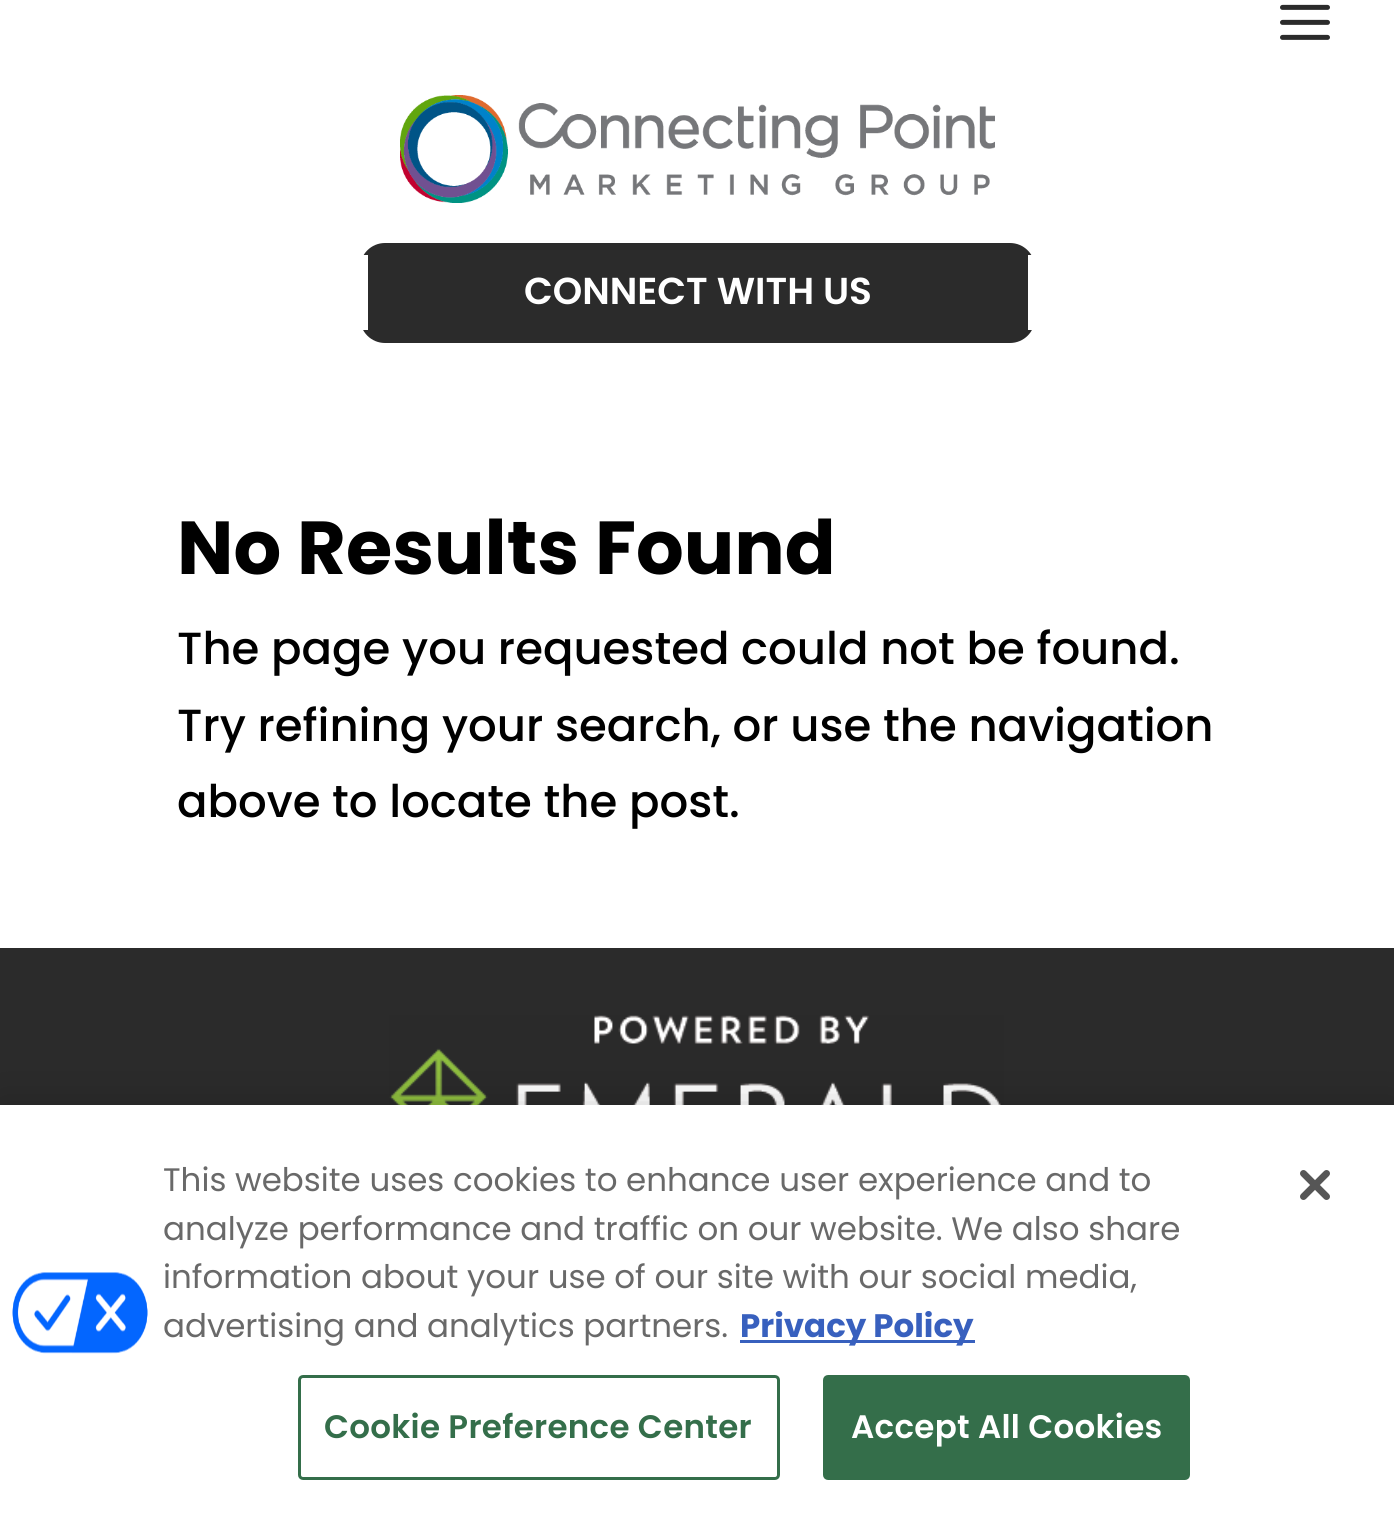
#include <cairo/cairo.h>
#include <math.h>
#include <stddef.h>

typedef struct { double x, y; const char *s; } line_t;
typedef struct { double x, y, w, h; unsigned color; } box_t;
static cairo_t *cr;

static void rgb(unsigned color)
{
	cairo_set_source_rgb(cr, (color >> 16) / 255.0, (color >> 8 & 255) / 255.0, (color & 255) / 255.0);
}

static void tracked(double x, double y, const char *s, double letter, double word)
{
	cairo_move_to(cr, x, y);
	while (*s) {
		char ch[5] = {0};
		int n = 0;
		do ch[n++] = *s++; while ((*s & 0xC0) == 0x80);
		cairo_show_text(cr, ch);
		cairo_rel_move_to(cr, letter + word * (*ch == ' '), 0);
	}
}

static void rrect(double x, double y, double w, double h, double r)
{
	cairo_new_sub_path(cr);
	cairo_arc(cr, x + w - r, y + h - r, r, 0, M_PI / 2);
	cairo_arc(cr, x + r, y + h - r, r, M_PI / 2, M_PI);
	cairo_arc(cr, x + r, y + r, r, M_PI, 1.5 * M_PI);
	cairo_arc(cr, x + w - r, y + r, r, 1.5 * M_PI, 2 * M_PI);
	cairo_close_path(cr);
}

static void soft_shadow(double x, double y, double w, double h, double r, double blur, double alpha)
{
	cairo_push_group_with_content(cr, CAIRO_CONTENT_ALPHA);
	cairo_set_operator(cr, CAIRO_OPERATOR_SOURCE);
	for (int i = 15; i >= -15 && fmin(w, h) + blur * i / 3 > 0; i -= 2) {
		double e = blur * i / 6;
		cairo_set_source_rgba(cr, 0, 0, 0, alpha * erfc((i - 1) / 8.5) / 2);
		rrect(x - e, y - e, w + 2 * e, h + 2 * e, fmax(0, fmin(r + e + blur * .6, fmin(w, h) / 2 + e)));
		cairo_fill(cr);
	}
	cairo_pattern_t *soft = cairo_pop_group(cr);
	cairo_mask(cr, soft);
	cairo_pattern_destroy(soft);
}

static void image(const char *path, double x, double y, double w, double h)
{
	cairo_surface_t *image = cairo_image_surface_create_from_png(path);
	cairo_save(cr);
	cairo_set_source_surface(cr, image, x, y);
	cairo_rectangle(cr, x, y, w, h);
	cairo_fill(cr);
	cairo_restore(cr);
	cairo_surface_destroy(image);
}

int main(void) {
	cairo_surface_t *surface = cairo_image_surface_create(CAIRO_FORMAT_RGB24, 1394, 1519);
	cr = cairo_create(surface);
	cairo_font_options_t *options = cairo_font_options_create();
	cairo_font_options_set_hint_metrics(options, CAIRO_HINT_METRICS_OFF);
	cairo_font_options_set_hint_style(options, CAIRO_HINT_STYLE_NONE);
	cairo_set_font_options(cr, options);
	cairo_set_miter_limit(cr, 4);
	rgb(0xffffff);
	cairo_paint(cr);
	image("img/1.png", 1280, 4, 50, 36);
	image("img/2.png", 400, 95, 595, 108);
	rgb(0x2b2b2b);
	rrect(360, 243, 675, 100, 25);
	cairo_fill(cr);
	{
		static const box_t items[] = {
			{1028, 255, 7, 75, 0xffffff},
			{360, 255, 8, 75, 0xffffff},
			{0, 948, 1394, 157, 0x2b2b2b},
		};
		for (size_t i = 0; i < sizeof items / sizeof *items; i++) {
			rgb(items[i].color);
			cairo_rectangle(cr, items[i].x, items[i].y, items[i].w, items[i].h);
			cairo_fill(cr);
		}
	}
	image("img/3.png", 389, 1015, 615, 90);
	rgb(0x000000);
	soft_shadow(0, 1105, 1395, 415, 0, 22.5, 0.2);
	rgb(0xffffff);
	cairo_rectangle(cr, 0, 1105, 1394, 414);
	cairo_fill(cr);
	image("img/4.png", 12, 1272, 136, 82);
	rgb(0x3860be);
	cairo_rectangle(cr, 740, 1340, 235, 3);
	cairo_fill(cr);
	rrect(299.5, 1376.5, 479, 102, 3.5);
	rgb(0x346e4a);
	cairo_set_line_width(cr, 3);
	cairo_stroke(cr);
	rrect(824.5, 1376.5, 364, 102, 3.5);
	cairo_fill_preserve(cr);
	cairo_stroke(cr);
	image("img/5.png", 1300, 1170, 30, 30);
	cairo_select_font_face(cr, "Poppins SemiBold", CAIRO_FONT_SLANT_NORMAL, CAIRO_FONT_WEIGHT_NORMAL);
	cairo_set_font_size(cr, 37.5);
	rgb(0xffffff);
	cairo_move_to(cr, 524, 304);
	cairo_show_text(cr, "CONNECT WITH US");
	cairo_select_font_face(cr, "Poppins", CAIRO_FONT_SLANT_NORMAL, CAIRO_FONT_WEIGHT_BOLD);
	cairo_set_font_size(cr, 75);
	rgb(0x000000);
	cairo_move_to(cr, 177, 574);
	cairo_show_text(cr, "No Results Found");
	cairo_select_font_face(cr, "Poppins Medium", CAIRO_FONT_SLANT_NORMAL, CAIRO_FONT_WEIGHT_NORMAL);
	cairo_set_font_size(cr, 45);
	{
		static const line_t items[] = {
			{177, 664, "The page you requested could not be found."},
			{177, 741, "Try refining your search, or use the navigation"},
			{177, 817, "above to locate the post."},
		};
		for (size_t i = 0; i < sizeof items / sizeof *items; i++) {
			cairo_move_to(cr, items[i].x, items[i].y);
			cairo_show_text(cr, items[i].s);
		}
	}
	cairo_select_font_face(cr, "Poppins", CAIRO_FONT_SLANT_NORMAL, CAIRO_FONT_WEIGHT_NORMAL);
	cairo_set_font_size(cr, 32.5);
	rgb(0x696969);
	{
		static const line_t items[] = {
			{163, 1191, "This website uses cookies to enhance user experience and to"},
			{163, 1240, "analyze performance and traffic on our website. We also share"},
			{163, 1288, "information about your use of our site with our social media,"},
			{163, 1337, "advertising and analytics partners."},
		};
		for (size_t i = 0; i < sizeof items / sizeof *items; i++) {
			cairo_move_to(cr, items[i].x, items[i].y);
			cairo_show_text(cr, items[i].s);
		}
	}
	cairo_select_font_face(cr, "Poppins", CAIRO_FONT_SLANT_NORMAL, CAIRO_FONT_WEIGHT_BOLD);
	rgb(0x3860be);
	cairo_move_to(cr, 740, 1337);
	cairo_show_text(cr, "Privacy Policy");
	cairo_select_font_face(cr, "Poppins SemiBold", CAIRO_FONT_SLANT_NORMAL, CAIRO_FONT_WEIGHT_NORMAL);
	rgb(0x346e4a);
	tracked(324, 1438, "Cookie Preference Center", 0.3, 0);
	rgb(0xffffff);
	tracked(851, 1438, "Accept All Cookies", 0.3, 0);
	cairo_surface_write_to_png(surface, "page.png");
	cairo_font_options_destroy(options);
	cairo_destroy(cr);
	cairo_surface_destroy(surface);
	return 0;
}
